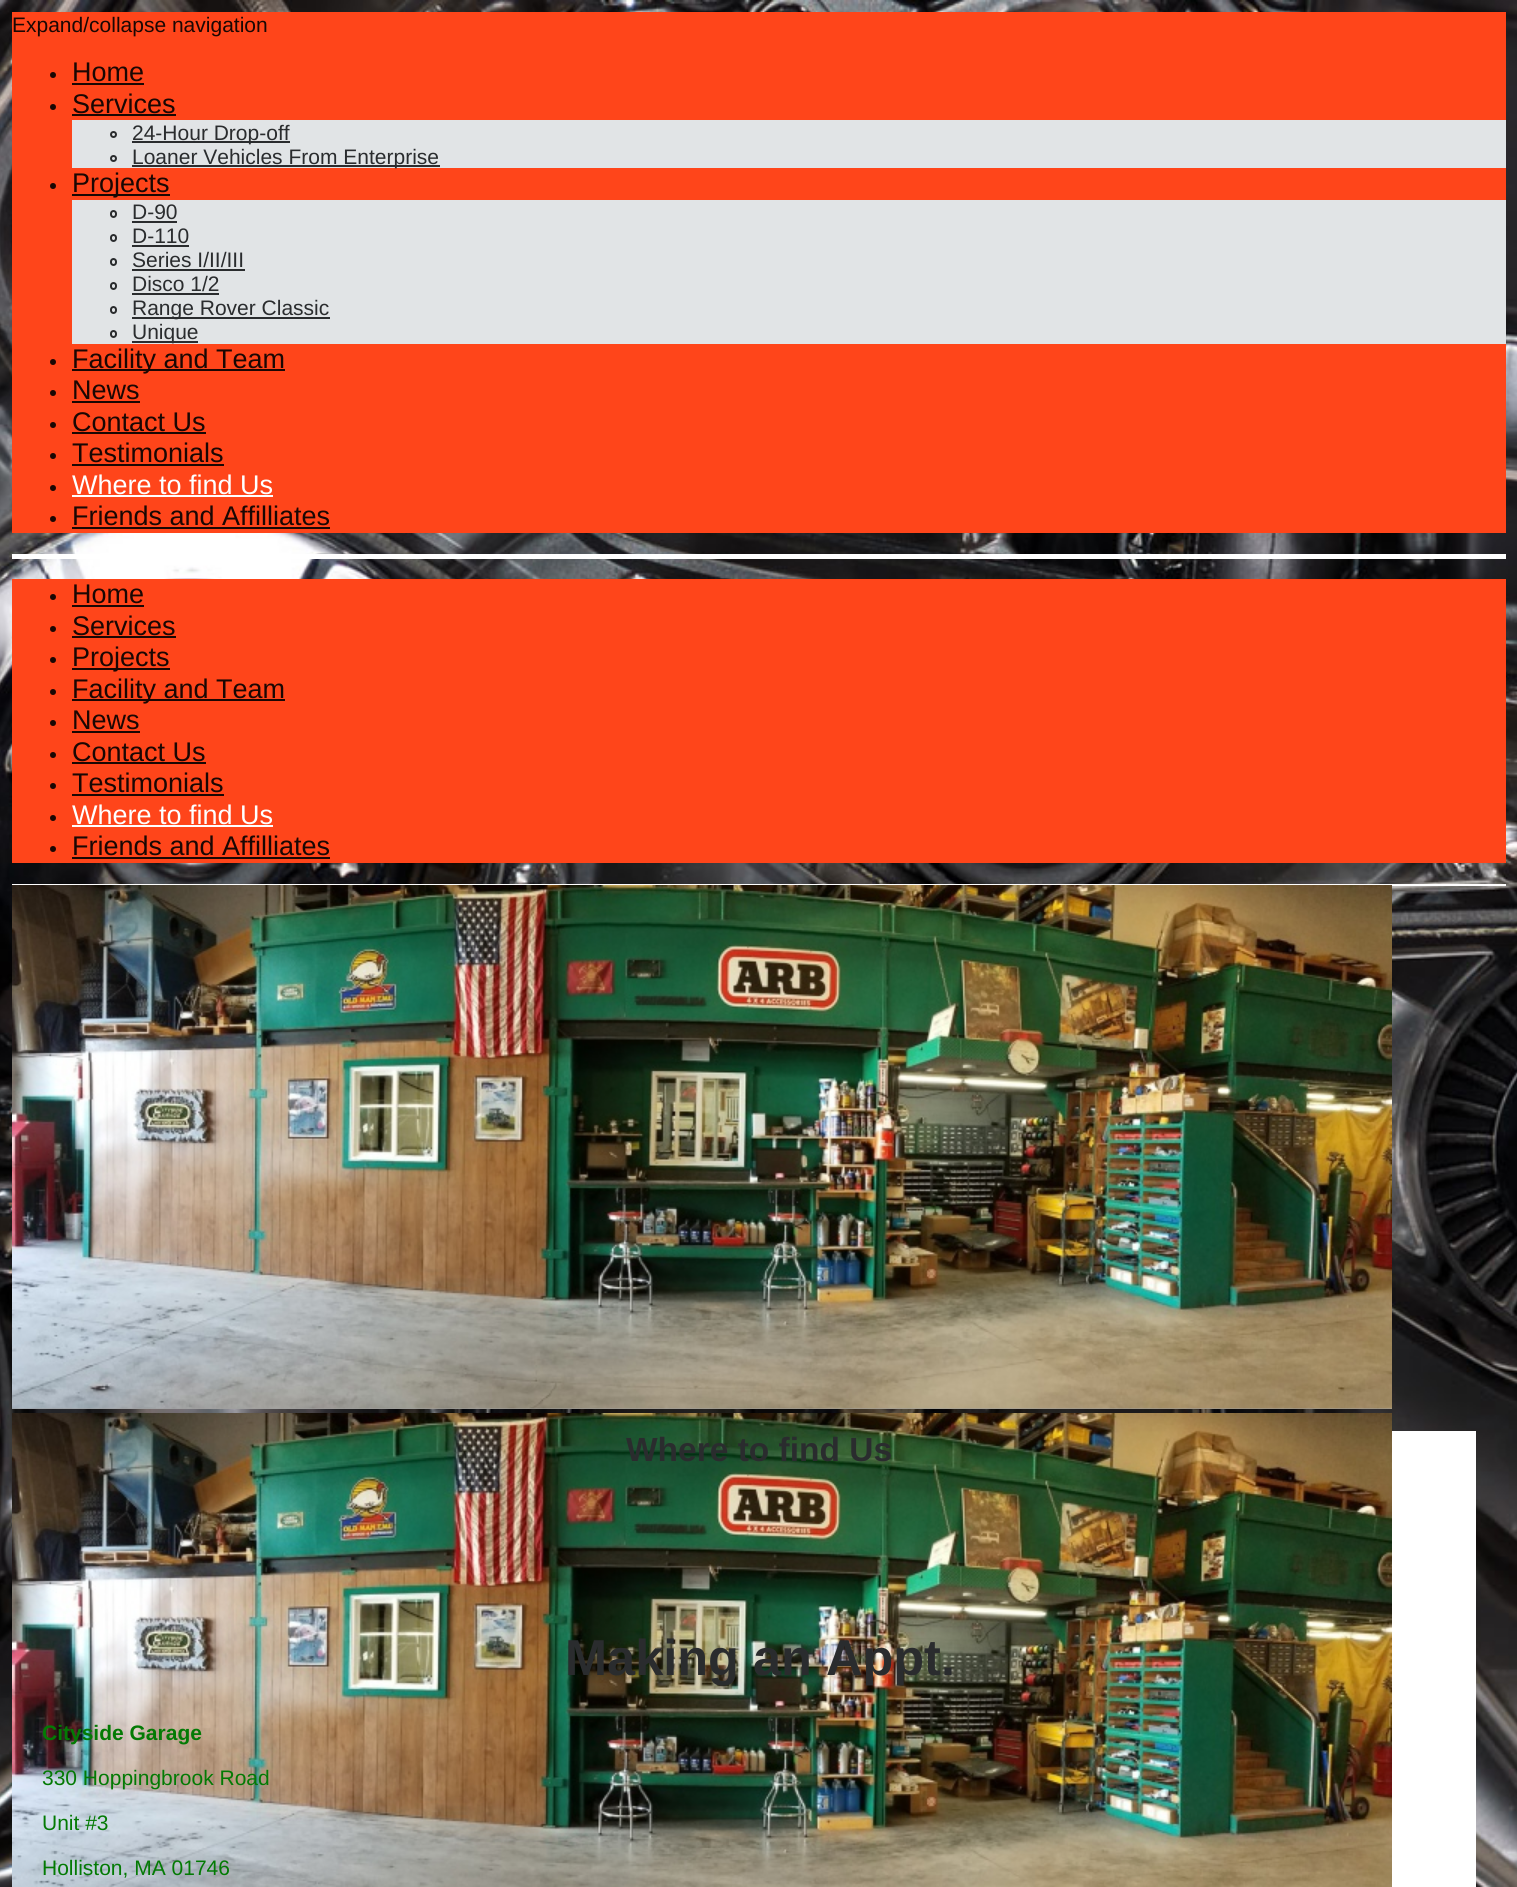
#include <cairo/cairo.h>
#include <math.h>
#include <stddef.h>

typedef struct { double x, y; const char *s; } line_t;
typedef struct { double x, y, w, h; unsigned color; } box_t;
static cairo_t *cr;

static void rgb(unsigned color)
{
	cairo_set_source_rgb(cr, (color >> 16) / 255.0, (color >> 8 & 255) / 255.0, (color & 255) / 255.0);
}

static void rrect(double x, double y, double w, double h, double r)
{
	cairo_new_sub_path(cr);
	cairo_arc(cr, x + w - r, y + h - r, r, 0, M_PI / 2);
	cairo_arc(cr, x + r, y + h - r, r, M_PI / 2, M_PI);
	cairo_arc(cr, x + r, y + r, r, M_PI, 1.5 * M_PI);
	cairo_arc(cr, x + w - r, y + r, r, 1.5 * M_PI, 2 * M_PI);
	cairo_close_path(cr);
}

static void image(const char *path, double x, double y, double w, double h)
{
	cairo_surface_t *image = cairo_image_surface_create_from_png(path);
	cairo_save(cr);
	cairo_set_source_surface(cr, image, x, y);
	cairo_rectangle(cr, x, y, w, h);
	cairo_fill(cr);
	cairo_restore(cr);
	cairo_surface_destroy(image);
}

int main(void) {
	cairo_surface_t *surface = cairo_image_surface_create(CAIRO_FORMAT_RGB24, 1517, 1887);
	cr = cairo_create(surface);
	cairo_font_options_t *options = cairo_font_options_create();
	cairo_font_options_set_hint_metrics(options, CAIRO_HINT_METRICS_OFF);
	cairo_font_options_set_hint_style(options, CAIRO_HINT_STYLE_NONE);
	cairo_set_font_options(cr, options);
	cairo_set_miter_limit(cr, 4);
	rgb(0xffffff);
	cairo_paint(cr);
	image("img/1.png", 0, 0, 1517, 1887);
	rgb(0xff451a);
	cairo_rectangle(cr, 12, 12, 1494, 521);
	cairo_fill(cr);
	rgb(0x1a0703);
	cairo_arc(cr, 53, 75, 3, 0, 2 * M_PI);
	cairo_fill(cr);
	cairo_rectangle(cr, 72, 83, 72, 2);
	cairo_fill(cr);
	cairo_arc(cr, 53, 107, 3, 0, 2 * M_PI);
	cairo_fill(cr);
	cairo_rectangle(cr, 72, 114, 104, 2);
	cairo_fill(cr);
	rgb(0xe1e4e6);
	cairo_rectangle(cr, 72, 120, 1434, 48);
	cairo_fill(cr);
	cairo_arc(cr, 113.5, 134.5, 2.5, 0, 2 * M_PI);
	rgb(0x2a2c2e);
	cairo_stroke(cr);
	cairo_rectangle(cr, 132, 141, 158, 2);
	cairo_fill(cr);
	cairo_arc(cr, 113.5, 158.5, 2.5, 0, 2 * M_PI);
	cairo_stroke(cr);
	cairo_rectangle(cr, 132, 165, 308, 2);
	cairo_fill(cr);
	rgb(0x1a0703);
	cairo_arc(cr, 53, 186, 3, 0, 2 * M_PI);
	cairo_fill(cr);
	cairo_rectangle(cr, 72, 194, 98, 2);
	cairo_fill(cr);
	rgb(0xe1e4e6);
	cairo_rectangle(cr, 72, 200, 1434, 144);
	cairo_fill(cr);
	rrect(111, 211, 5, 6, 2.5);
	rgb(0x2a2c2e);
	cairo_stroke(cr);
	cairo_rectangle(cr, 132, 221, 45, 2);
	cairo_fill(cr);
	rrect(111, 235, 5, 6, 2.5);
	cairo_stroke(cr);
	cairo_rectangle(cr, 132, 245, 57, 2);
	cairo_fill(cr);
	rrect(111, 259, 5, 6, 2.5);
	cairo_stroke(cr);
	cairo_rectangle(cr, 132, 269, 113, 2);
	cairo_fill(cr);
	rrect(111, 283, 5, 6, 2.5);
	cairo_stroke(cr);
	cairo_rectangle(cr, 132, 293, 87, 2);
	cairo_fill(cr);
	rrect(111, 307, 5, 6, 2.5);
	cairo_stroke(cr);
	cairo_rectangle(cr, 132, 317, 198, 2);
	cairo_fill(cr);
	rrect(111, 331, 5, 6, 2.5);
	cairo_stroke(cr);
	cairo_rectangle(cr, 132, 341, 66, 2);
	cairo_fill(cr);
	rgb(0x1a0703);
	cairo_arc(cr, 53, 362, 3, 0, 2 * M_PI);
	cairo_fill(cr);
	cairo_rectangle(cr, 72, 369, 213, 2);
	cairo_fill(cr);
	cairo_arc(cr, 53, 393, 3, 0, 2 * M_PI);
	cairo_fill(cr);
	cairo_rectangle(cr, 72, 401, 68, 2);
	cairo_fill(cr);
	cairo_arc(cr, 53, 425, 3, 0, 2 * M_PI);
	cairo_fill(cr);
	cairo_rectangle(cr, 72, 432, 134, 2);
	cairo_fill(cr);
	cairo_arc(cr, 53, 456, 3, 0, 2 * M_PI);
	cairo_fill(cr);
	cairo_rectangle(cr, 72, 464, 152, 2);
	cairo_fill(cr);
	cairo_arc(cr, 53, 488, 3, 0, 2 * M_PI);
	cairo_fill(cr);
	rgb(0xffffff);
	cairo_rectangle(cr, 72, 495, 201, 2);
	cairo_fill(cr);
	rgb(0x1a0703);
	cairo_arc(cr, 53, 519, 3, 0, 2 * M_PI);
	cairo_fill(cr);
	{
		static const box_t items[] = {
			{72, 527, 258, 2, 0x1a0703},
			{12, 554, 1494, 5, 0xffffff},
			{12, 884, 1494, 2, 0xffffff},
			{12, 579, 1494, 284, 0xff451a},
		};
		for (size_t i = 0; i < sizeof items / sizeof *items; i++) {
			rgb(items[i].color);
			cairo_rectangle(cr, items[i].x, items[i].y, items[i].w, items[i].h);
			cairo_fill(cr);
		}
	}
	rgb(0x1a0703);
	cairo_arc(cr, 53, 597, 3, 0, 2 * M_PI);
	cairo_fill(cr);
	cairo_rectangle(cr, 72, 605, 72, 2);
	cairo_fill(cr);
	cairo_arc(cr, 53, 629, 3, 0, 2 * M_PI);
	cairo_fill(cr);
	cairo_rectangle(cr, 72, 636, 104, 2);
	cairo_fill(cr);
	cairo_arc(cr, 53, 660, 3, 0, 2 * M_PI);
	cairo_fill(cr);
	cairo_rectangle(cr, 72, 668, 98, 2);
	cairo_fill(cr);
	cairo_arc(cr, 53, 692, 3, 0, 2 * M_PI);
	cairo_fill(cr);
	cairo_rectangle(cr, 72, 699, 213, 2);
	cairo_fill(cr);
	cairo_arc(cr, 53, 723, 3, 0, 2 * M_PI);
	cairo_fill(cr);
	cairo_rectangle(cr, 72, 731, 68, 2);
	cairo_fill(cr);
	cairo_arc(cr, 53, 755, 3, 0, 2 * M_PI);
	cairo_fill(cr);
	cairo_rectangle(cr, 72, 762, 134, 2);
	cairo_fill(cr);
	cairo_arc(cr, 53, 786, 3, 0, 2 * M_PI);
	cairo_fill(cr);
	cairo_rectangle(cr, 72, 794, 152, 2);
	cairo_fill(cr);
	cairo_arc(cr, 53, 818, 3, 0, 2 * M_PI);
	cairo_fill(cr);
	rgb(0xffffff);
	cairo_rectangle(cr, 72, 825, 201, 2);
	cairo_fill(cr);
	rgb(0x1a0703);
	cairo_arc(cr, 53, 849, 3, 0, 2 * M_PI);
	cairo_fill(cr);
	cairo_rectangle(cr, 72, 857, 258, 2);
	cairo_fill(cr);
	rgb(0xa0a0a0);
	cairo_rectangle(cr, 12, 1408, 1380, 1);
	cairo_fill(cr);
	image("img/2.png", 12, 885, 1380, 524);
	image("img/3.png", 12, 1413, 1380, 474);
	rgb(0xffffff);
	cairo_rectangle(cr, 1392, 1431, 84, 456);
	cairo_fill(cr);
	cairo_select_font_face(cr, "Liberation Sans", CAIRO_FONT_SLANT_NORMAL, CAIRO_FONT_WEIGHT_NORMAL);
	cairo_set_font_size(cr, 21);
	rgb(0x1a0703);
	cairo_move_to(cr, 12, 32);
	cairo_show_text(cr, "Expand/collapse navigation");
	cairo_set_font_size(cr, 27);
	cairo_move_to(cr, 72, 81);
	cairo_show_text(cr, "Home");
	cairo_move_to(cr, 72, 113);
	cairo_show_text(cr, "Services");
	cairo_set_font_size(cr, 21);
	rgb(0x2a2c2e);
	cairo_move_to(cr, 132, 140);
	cairo_show_text(cr, "24-Hour Drop-off");
	cairo_move_to(cr, 132, 164);
	cairo_show_text(cr, "Loaner Vehicles From Enterprise");
	cairo_set_font_size(cr, 27);
	rgb(0x1a0703);
	cairo_move_to(cr, 72, 192);
	cairo_show_text(cr, "Projects");
	cairo_set_font_size(cr, 21);
	rgb(0x2a2c2e);
	{
		static const line_t items[] = {
			{132, 219, "D-90"},
			{132, 243, "D-110"},
			{132, 267, "Series I/II/III"},
			{132, 291, "Disco 1/2"},
			{132, 315, "Range Rover Classic"},
			{132, 339, "Unique"},
		};
		for (size_t i = 0; i < sizeof items / sizeof *items; i++) {
			cairo_move_to(cr, items[i].x, items[i].y);
			cairo_show_text(cr, items[i].s);
		}
	}
	cairo_set_font_size(cr, 27);
	rgb(0x1a0703);
	{
		static const line_t items[] = {
			{72, 368, "Facility and Team"},
			{72, 399, "News"},
			{72, 431, "Contact Us"},
			{72, 462, "Testimonials"},
		};
		for (size_t i = 0; i < sizeof items / sizeof *items; i++) {
			cairo_move_to(cr, items[i].x, items[i].y);
			cairo_show_text(cr, items[i].s);
		}
	}
	rgb(0xffffff);
	cairo_move_to(cr, 72, 494);
	cairo_show_text(cr, "Where to find Us");
	rgb(0x1a0703);
	{
		static const line_t items[] = {
			{72, 525, "Friends and Affilliates"},
			{72, 603, "Home"},
			{72, 635, "Services"},
			{72, 666, "Projects"},
			{72, 698, "Facility and Team"},
			{72, 729, "News"},
			{72, 761, "Contact Us"},
			{72, 792, "Testimonials"},
		};
		for (size_t i = 0; i < sizeof items / sizeof *items; i++) {
			cairo_move_to(cr, items[i].x, items[i].y);
			cairo_show_text(cr, items[i].s);
		}
	}
	rgb(0xffffff);
	cairo_move_to(cr, 72, 824);
	cairo_show_text(cr, "Where to find Us");
	rgb(0x1a0703);
	cairo_move_to(cr, 72, 855);
	cairo_show_text(cr, "Friends and Affilliates");
	cairo_select_font_face(cr, "Liberation Sans", CAIRO_FONT_SLANT_NORMAL, CAIRO_FONT_WEIGHT_BOLD);
	cairo_set_font_size(cr, 33.5);
	rgb(0x2a2c2e);
	cairo_move_to(cr, 626, 1461);
	cairo_show_text(cr, "Where to find Us");
	cairo_set_font_size(cr, 50.5);
	cairo_move_to(cr, 565, 1675);
	cairo_show_text(cr, "Making an Appt.");
	cairo_set_font_size(cr, 21);
	rgb(0x037a04);
	cairo_move_to(cr, 42, 1740);
	cairo_show_text(cr, "Cityside Garage");
	cairo_select_font_face(cr, "Liberation Sans", CAIRO_FONT_SLANT_NORMAL, CAIRO_FONT_WEIGHT_NORMAL);
	{
		static const line_t items[] = {
			{42, 1785, "330 Hoppingbrook Road"},
			{42, 1830, "Unit #3"},
			{42, 1875, "Holliston, MA 01746"},
		};
		for (size_t i = 0; i < sizeof items / sizeof *items; i++) {
			cairo_move_to(cr, items[i].x, items[i].y);
			cairo_show_text(cr, items[i].s);
		}
	}
	cairo_surface_write_to_png(surface, "page.png");
	cairo_font_options_destroy(options);
	cairo_destroy(cr);
	cairo_surface_destroy(surface);
	return 0;
}
